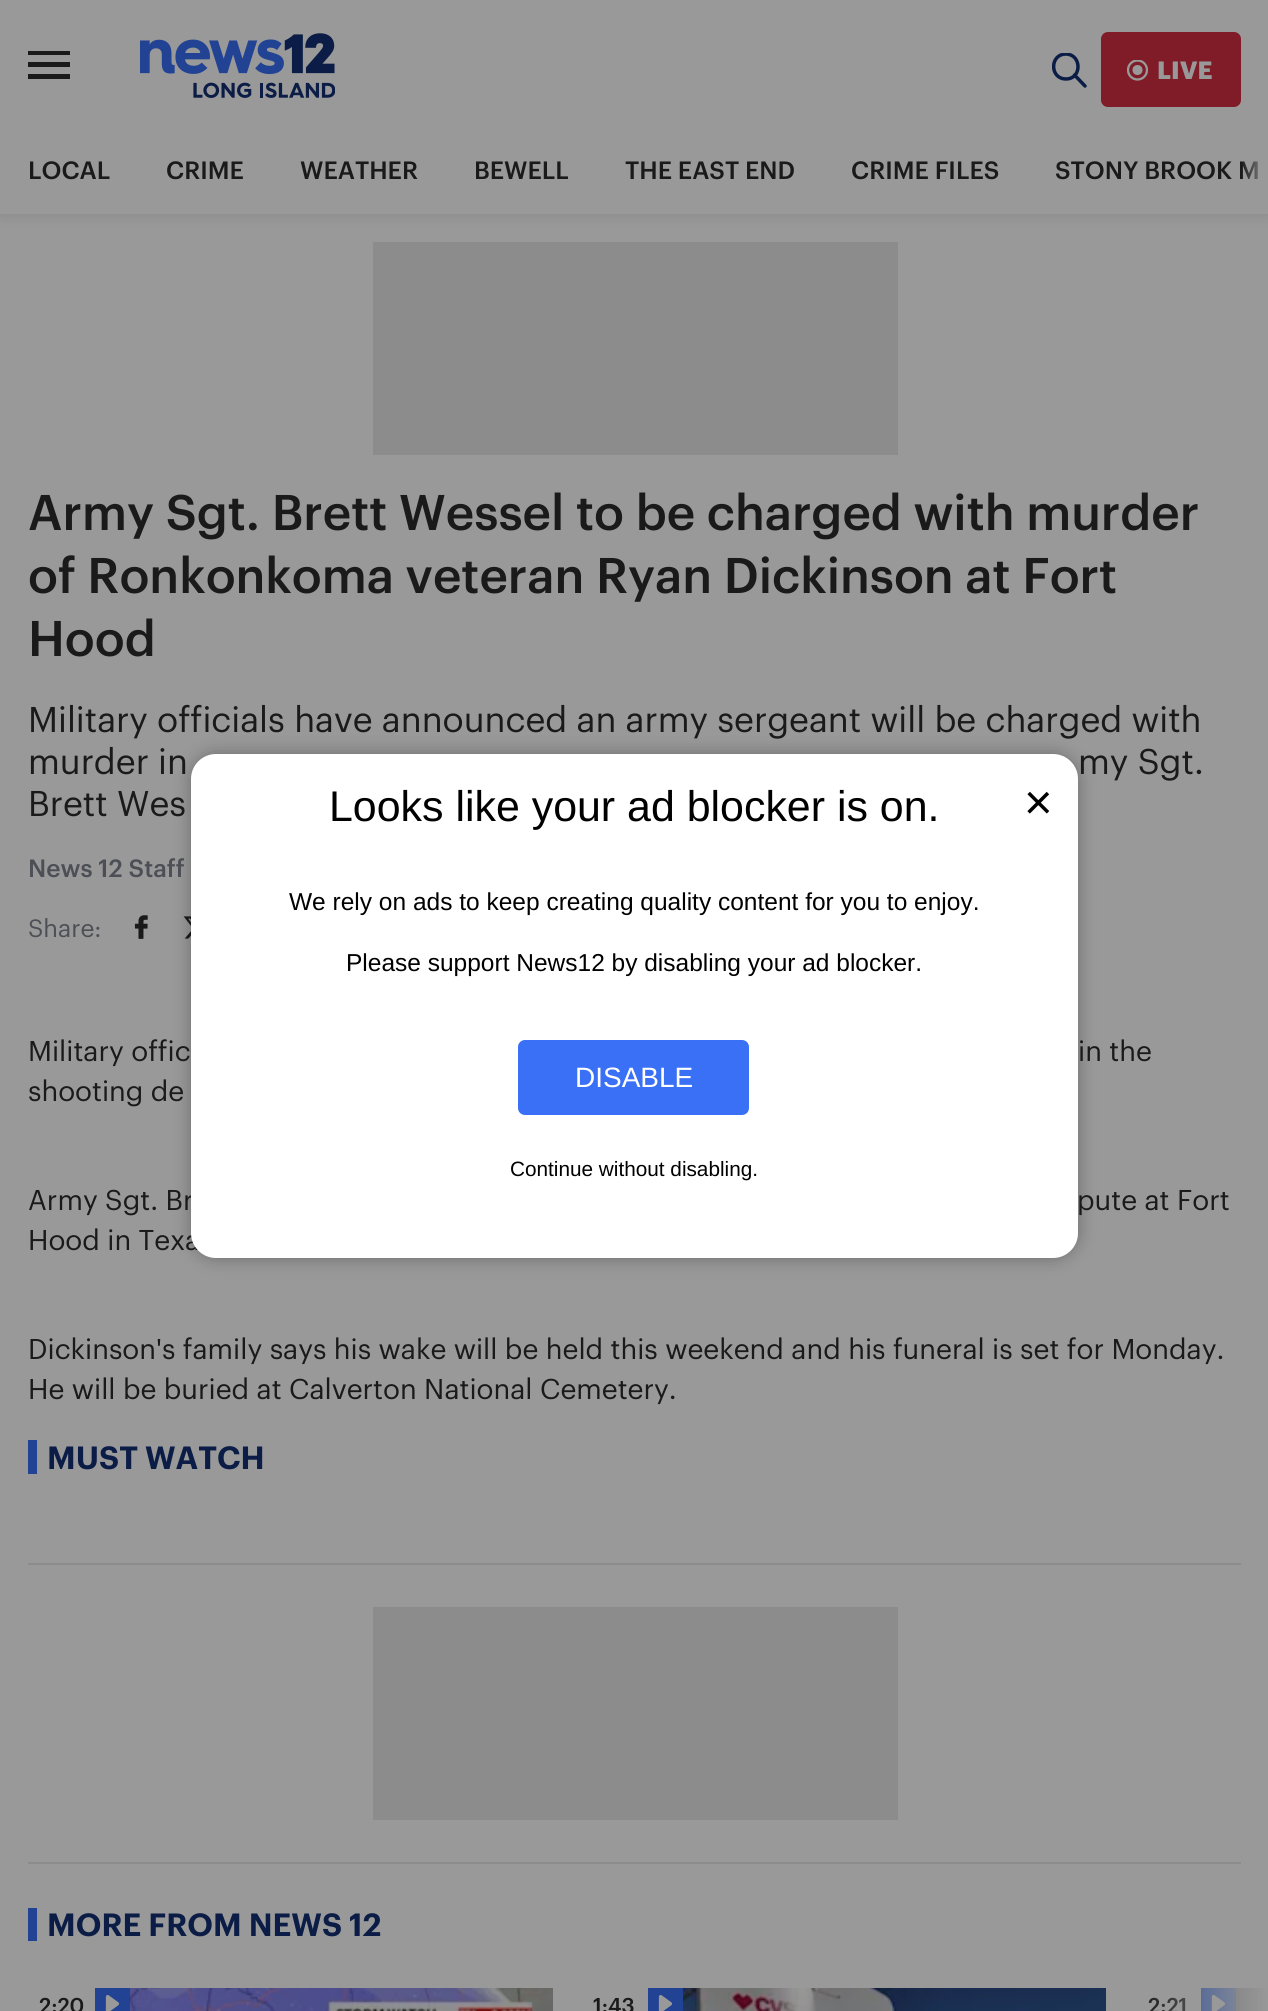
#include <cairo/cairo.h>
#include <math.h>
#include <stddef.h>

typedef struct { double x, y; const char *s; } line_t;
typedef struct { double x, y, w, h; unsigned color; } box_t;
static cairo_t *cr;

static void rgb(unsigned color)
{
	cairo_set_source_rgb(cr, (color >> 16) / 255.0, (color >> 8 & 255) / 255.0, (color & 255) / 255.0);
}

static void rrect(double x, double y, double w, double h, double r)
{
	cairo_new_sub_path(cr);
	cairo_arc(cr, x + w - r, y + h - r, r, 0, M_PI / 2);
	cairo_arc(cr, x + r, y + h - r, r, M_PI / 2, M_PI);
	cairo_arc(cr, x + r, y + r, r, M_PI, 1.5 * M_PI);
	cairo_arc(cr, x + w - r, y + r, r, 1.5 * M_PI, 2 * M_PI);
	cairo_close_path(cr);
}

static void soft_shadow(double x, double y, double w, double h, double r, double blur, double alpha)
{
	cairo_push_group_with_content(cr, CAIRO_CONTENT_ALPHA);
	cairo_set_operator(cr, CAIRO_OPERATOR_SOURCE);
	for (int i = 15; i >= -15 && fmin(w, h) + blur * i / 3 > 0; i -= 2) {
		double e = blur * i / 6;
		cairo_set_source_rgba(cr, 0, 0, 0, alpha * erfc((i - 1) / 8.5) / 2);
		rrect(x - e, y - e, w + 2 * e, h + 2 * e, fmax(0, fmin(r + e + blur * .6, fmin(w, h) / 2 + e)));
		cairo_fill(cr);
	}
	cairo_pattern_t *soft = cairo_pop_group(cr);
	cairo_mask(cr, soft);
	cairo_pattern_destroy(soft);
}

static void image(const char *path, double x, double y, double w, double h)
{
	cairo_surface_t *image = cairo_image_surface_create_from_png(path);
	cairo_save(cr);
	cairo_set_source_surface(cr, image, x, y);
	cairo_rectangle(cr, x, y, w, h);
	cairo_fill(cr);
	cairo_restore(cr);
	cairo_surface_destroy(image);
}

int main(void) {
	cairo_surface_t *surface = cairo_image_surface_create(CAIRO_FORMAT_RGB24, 1268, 2011);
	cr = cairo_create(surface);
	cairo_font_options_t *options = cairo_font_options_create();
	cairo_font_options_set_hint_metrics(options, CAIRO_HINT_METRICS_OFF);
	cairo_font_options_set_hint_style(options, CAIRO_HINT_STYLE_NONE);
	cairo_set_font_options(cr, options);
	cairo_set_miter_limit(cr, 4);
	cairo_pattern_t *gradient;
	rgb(0x999999);
	cairo_paint(cr);
	rgb(0x000000);
	soft_shadow(0, -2, 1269, 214, 0, 9, 0.15);
	rgb(0x999999);
	cairo_rectangle(cr, 0, 0, 1268, 214);
	cairo_fill(cr);
	rgb(0x1a1a1a);
	cairo_set_fill_rule(cr, CAIRO_FILL_RULE_EVEN_ODD);
	cairo_new_path(cr);
	cairo_move_to(cr, 28, 55);
	cairo_line_to(cr, 28, 51);
	cairo_line_to(cr, 70, 51);
	cairo_line_to(cr, 70, 55);
	cairo_close_path(cr);
	cairo_move_to(cr, 28, 67);
	cairo_line_to(cr, 70, 67);
	cairo_line_to(cr, 70, 62);
	cairo_line_to(cr, 28, 62);
	cairo_close_path(cr);
	cairo_move_to(cr, 28, 79);
	cairo_line_to(cr, 70, 79);
	cairo_line_to(cr, 70, 74);
	cairo_line_to(cr, 28, 74);
	cairo_close_path(cr);
	cairo_fill(cr);
	image("img/1.png", 140, 33, 195, 65);
	cairo_save(cr);
	cairo_set_fill_rule(cr, CAIRO_FILL_RULE_WINDING);
	cairo_rectangle(cr, 1052, 53, 35, 35);
	cairo_clip(cr);
	cairo_new_path(cr);
	cairo_move_to(cr, 1074.5, 75);
	cairo_line_to(cr, 1085, 86);
	cairo_move_to(cr, 1066, 79);
	cairo_curve_to(cr, 1049.5, 79, 1049.5, 54, 1066, 54);
	cairo_curve_to(cr, 1082, 54.5, 1082, 79, 1066, 79);
	cairo_close_path(cr);
	rgb(0x0b1d46);
	cairo_set_line_width(cr, 3.5);
	cairo_set_line_cap(cr, CAIRO_LINE_CAP_ROUND);
	cairo_set_line_join(cr, CAIRO_LINE_JOIN_ROUND);
	cairo_stroke(cr);
	cairo_restore(cr);
	rgb(0x7f1c28);
	rrect(1101, 32, 140, 75, 7);
	cairo_fill(cr);
	rgb(0x999999);
	cairo_arc(cr, 1137.5, 70, 5, 0, 2 * M_PI);
	cairo_fill(cr);
	cairo_save(cr);
	cairo_set_fill_rule(cr, CAIRO_FILL_RULE_WINDING);
	cairo_rectangle(cr, 1127, 60, 21, 21);
	cairo_clip(cr);
	cairo_arc(cr, 1137.5, 70, 9.5, 0, 2 * M_PI);
	cairo_set_line_width(cr, 2.3);
	cairo_stroke(cr);
	cairo_restore(cr);
	rgb(0x8c8c8c);
	cairo_rectangle(cr, 373, 242, 525, 213);
	cairo_fill(cr);
	image("img/2.png", 134, 915, 14, 24);
	image("img/3.png", 183, 916, 8, 23);
	{
		static const box_t items[] = {
			{28, 1440, 9, 34, 0x224394},
			{28, 1563, 1213, 2, 0x8c8c8c},
			{373, 1607, 525, 213, 0x8c8c8c},
			{28, 1862, 1213, 2, 0x8c8c8c},
			{28, 1908, 9, 33, 0x224394},
			{95, 1988, 35, 23, 0x224394},
		};
		for (size_t i = 0; i < sizeof items / sizeof *items; i++) {
			rgb(items[i].color);
			cairo_rectangle(cr, items[i].x, items[i].y, items[i].w, items[i].h);
			cairo_fill(cr);
		}
	}
	image("img/4.png", 105, 1995, 15, 16);
	image("img/5.png", 130, 1988, 423, 23);
	cairo_rectangle(cr, 648, 1988, 35, 23);
	cairo_fill(cr);
	image("img/4.png", 658, 1995, 15, 16);
	image("img/6.png", 683, 1988, 423, 23);
	cairo_rectangle(cr, 1201, 1988, 35, 23);
	cairo_fill(cr);
	image("img/4.png", 1211, 1995, 15, 16);
	image("img/7.png", 1236, 1988, 32, 23);
	rgb(0x000000);
	soft_shadow(191, 754, 887, 504, 25, 9, 0.3);
	cairo_select_font_face(cr, "Graphik", CAIRO_FONT_SLANT_NORMAL, CAIRO_FONT_WEIGHT_BOLD);
	cairo_set_font_size(cr, 24.5);
	rgb(0x999999);
	cairo_move_to(cr, 1157, 79);
	cairo_show_text(cr, "LIVE");
	cairo_select_font_face(cr, "Graphik Medium", CAIRO_FONT_SLANT_NORMAL, CAIRO_FONT_WEIGHT_NORMAL);
	rgb(0x1a1a1a);
	{
		static const line_t items[] = {
			{28, 179, "LOCAL"},
			{166, 179, "CRIME"},
			{300, 179, "WEATHER"},
			{474, 179, "BEWELL"},
			{625, 179, "THE EAST END"},
			{851, 179, "CRIME FILES"},
			{1055, 179, "STONY BROOK M"},
		};
		for (size_t i = 0; i < sizeof items / sizeof *items; i++) {
			cairo_move_to(cr, items[i].x, items[i].y);
			cairo_show_text(cr, items[i].s);
		}
	}
	gradient = cairo_pattern_create_linear(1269, 171, 1241, 171);
	cairo_pattern_add_color_stop_rgba(gradient, 0, 0.6, 0.6, 0.6, 1);
	cairo_pattern_add_color_stop_rgba(gradient, 1, 0.6, 0.6, 0.6, 0);
	cairo_set_source(cr, gradient);
	cairo_pattern_destroy(gradient);
	cairo_rectangle(cr, 1242, 161, 17, 18);
	cairo_fill(cr);
	cairo_set_font_size(cr, 49);
	rgb(0x1a1a1a);
	{
		static const line_t items[] = {
			{28, 530, "Army Sgt. Brett Wessel to be charged with murder"},
			{28, 593, "of Ronkonkoma veteran Ryan Dickinson at Fort"},
			{28, 656, "Hood"},
		};
		for (size_t i = 0; i < sizeof items / sizeof *items; i++) {
			cairo_move_to(cr, items[i].x, items[i].y);
			cairo_show_text(cr, items[i].s);
		}
	}
	cairo_select_font_face(cr, "Graphik", CAIRO_FONT_SLANT_NORMAL, CAIRO_FONT_WEIGHT_NORMAL);
	cairo_set_font_size(cr, 35);
	{
		static const line_t items[] = {
			{28, 732, "Military officials have announced an army sergeant will be charged with"},
			{28, 774, "murder in"},
			{1078, 774, "my Sgt."},
			{28, 816, "Brett Wes"},
		};
		for (size_t i = 0; i < sizeof items / sizeof *items; i++) {
			cairo_move_to(cr, items[i].x, items[i].y);
			cairo_show_text(cr, items[i].s);
		}
	}
	cairo_select_font_face(cr, "Graphik Medium", CAIRO_FONT_SLANT_NORMAL, CAIRO_FONT_WEIGHT_NORMAL);
	cairo_set_font_size(cr, 24.5);
	rgb(0x4d4f56);
	cairo_move_to(cr, 28, 877);
	cairo_show_text(cr, "News 12 Staff");
	cairo_select_font_face(cr, "Graphik", CAIRO_FONT_SLANT_NORMAL, CAIRO_FONT_WEIGHT_NORMAL);
	cairo_move_to(cr, 28, 937);
	cairo_show_text(cr, "Share:");
	cairo_set_font_size(cr, 28);
	rgb(0x1a1a1a);
	{
		static const line_t items[] = {
			{28, 1061, "Military offic"},
			{1078, 1061, "in the"},
			{28, 1101, "shooting de"},
			{28, 1210, "Army Sgt. Br"},
			{1077, 1210, "pute at Fort"},
			{28, 1250, "Hood in Texa"},
			{28, 1359, "Dickinson's family says his wake will be held this weekend and his funeral is set for Monday."},
			{28, 1399, "He will be buried at Calverton National Cemetery."},
		};
		for (size_t i = 0; i < sizeof items / sizeof *items; i++) {
			cairo_move_to(cr, items[i].x, items[i].y);
			cairo_show_text(cr, items[i].s);
		}
	}
	cairo_select_font_face(cr, "Graphik SemiBold", CAIRO_FONT_SLANT_NORMAL, CAIRO_FONT_WEIGHT_NORMAL);
	cairo_set_font_size(cr, 31.5);
	rgb(0x0b1d46);
	cairo_move_to(cr, 47, 1469);
	cairo_show_text(cr, "MUST WATCH");
	cairo_move_to(cr, 47, 1936);
	cairo_show_text(cr, "MORE FROM NEWS 12");
	cairo_select_font_face(cr, "Graphik Medium", CAIRO_FONT_SLANT_NORMAL, CAIRO_FONT_WEIGHT_NORMAL);
	cairo_set_font_size(cr, 21);
	rgb(0x1a1a1a);
	{
		static const line_t items[] = {
			{39, 2013, "2:20"},
			{593, 2013, "1:43"},
			{1148, 2013, "2:21"},
		};
		for (size_t i = 0; i < sizeof items / sizeof *items; i++) {
			cairo_move_to(cr, items[i].x, items[i].y);
			cairo_show_text(cr, items[i].s);
		}
	}
	gradient = cairo_pattern_create_linear(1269, 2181, 1138, 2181);
	cairo_pattern_add_color_stop_rgba(gradient, 0, 0.6, 0.6, 0.6, 1);
	cairo_pattern_add_color_stop_rgba(gradient, 1, 0.6, 0.6, 0.6, 0);
	cairo_set_source(cr, gradient);
	cairo_pattern_destroy(gradient);
	cairo_rectangle(cr, 1148, 1988, 120, 23);
	cairo_fill(cr);
	rgb(0xffffff);
	rrect(191, 754, 887, 504, 25);
	cairo_fill(cr);
	cairo_select_font_face(cr, "Liberation Sans", CAIRO_FONT_SLANT_NORMAL, CAIRO_FONT_WEIGHT_NORMAL);
	cairo_set_font_size(cr, 42.9);
	rgb(0x000000);
	cairo_move_to(cr, 329, 821);
	cairo_show_text(cr, "Looks like your ad blocker is on.");
	cairo_set_font_size(cr, 49);
	cairo_move_to(cr, 1024, 819);
	cairo_show_text(cr, "×");
	cairo_set_font_size(cr, 24.5);
	cairo_move_to(cr, 289, 910);
	cairo_show_text(cr, "We rely on ads to keep creating quality content for you to enjoy.");
	cairo_move_to(cr, 346, 971);
	cairo_show_text(cr, "Please support News12 by disabling your ad blocker.");
	rgb(0x3970f6);
	rrect(518, 1040, 231, 75, 7);
	cairo_fill(cr);
	cairo_set_font_size(cr, 28);
	rgb(0xffffff);
	cairo_move_to(cr, 575, 1087);
	cairo_show_text(cr, "DISABLE");
	cairo_set_font_size(cr, 20.75);
	rgb(0x000000);
	cairo_move_to(cr, 510, 1176);
	cairo_show_text(cr, "Continue without disabling.");
	cairo_surface_write_to_png(surface, "page.png");
	cairo_font_options_destroy(options);
	cairo_destroy(cr);
	cairo_surface_destroy(surface);
	return 0;
}
